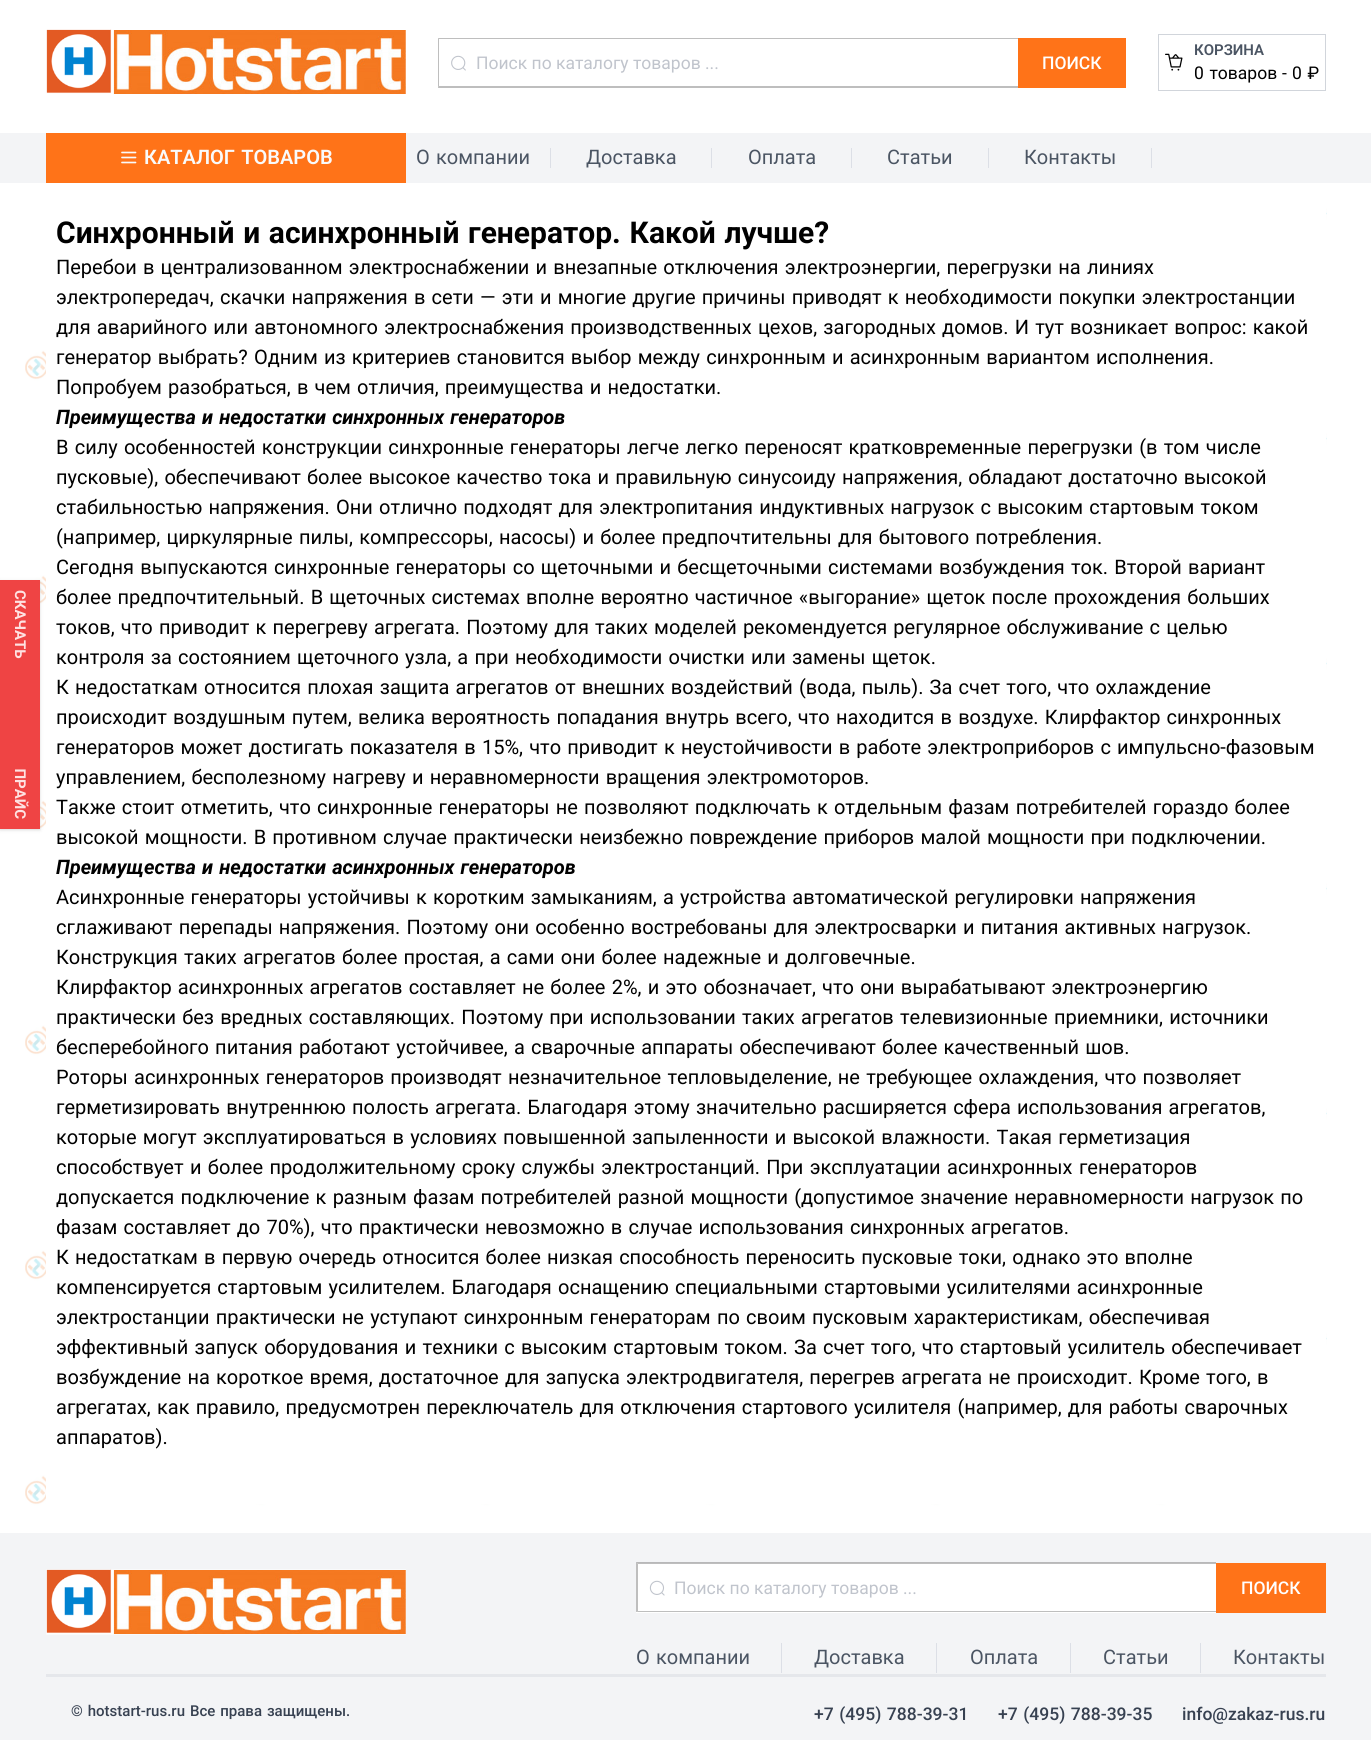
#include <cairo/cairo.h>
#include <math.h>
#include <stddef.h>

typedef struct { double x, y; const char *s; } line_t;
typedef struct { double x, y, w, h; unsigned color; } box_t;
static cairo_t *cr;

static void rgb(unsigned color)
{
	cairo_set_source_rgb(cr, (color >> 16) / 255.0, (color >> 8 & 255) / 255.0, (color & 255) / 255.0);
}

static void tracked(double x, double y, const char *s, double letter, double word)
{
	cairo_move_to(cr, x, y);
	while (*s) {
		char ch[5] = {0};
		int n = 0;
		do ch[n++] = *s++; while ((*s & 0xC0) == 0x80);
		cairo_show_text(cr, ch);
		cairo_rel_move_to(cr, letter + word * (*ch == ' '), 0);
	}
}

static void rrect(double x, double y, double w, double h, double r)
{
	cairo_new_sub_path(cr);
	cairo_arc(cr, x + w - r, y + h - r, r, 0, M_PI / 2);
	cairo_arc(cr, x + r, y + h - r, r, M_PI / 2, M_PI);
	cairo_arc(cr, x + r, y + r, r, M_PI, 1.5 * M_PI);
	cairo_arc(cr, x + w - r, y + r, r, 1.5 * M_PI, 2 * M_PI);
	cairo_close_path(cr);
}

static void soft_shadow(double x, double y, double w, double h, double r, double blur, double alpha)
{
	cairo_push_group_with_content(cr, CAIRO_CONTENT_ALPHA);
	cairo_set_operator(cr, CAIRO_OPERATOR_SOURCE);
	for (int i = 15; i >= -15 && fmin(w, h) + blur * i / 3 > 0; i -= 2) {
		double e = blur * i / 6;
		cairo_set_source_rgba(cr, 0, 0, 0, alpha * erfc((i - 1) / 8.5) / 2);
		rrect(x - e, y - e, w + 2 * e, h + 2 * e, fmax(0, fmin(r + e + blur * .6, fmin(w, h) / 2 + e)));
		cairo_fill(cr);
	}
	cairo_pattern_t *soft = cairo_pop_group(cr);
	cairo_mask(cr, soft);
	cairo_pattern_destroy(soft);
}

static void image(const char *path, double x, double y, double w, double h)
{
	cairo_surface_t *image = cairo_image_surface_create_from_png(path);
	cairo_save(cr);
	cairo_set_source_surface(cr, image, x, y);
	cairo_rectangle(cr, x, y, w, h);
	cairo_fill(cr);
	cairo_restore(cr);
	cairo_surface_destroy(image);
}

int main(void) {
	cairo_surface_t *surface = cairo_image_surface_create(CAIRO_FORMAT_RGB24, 1371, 1740);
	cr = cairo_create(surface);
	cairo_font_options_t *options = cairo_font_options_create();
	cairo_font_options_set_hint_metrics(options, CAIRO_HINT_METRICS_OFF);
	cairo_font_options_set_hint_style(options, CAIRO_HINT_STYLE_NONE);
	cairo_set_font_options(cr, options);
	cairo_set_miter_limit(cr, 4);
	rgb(0xffffff);
	cairo_paint(cr);
	image("img/1.png", 25, 206, 1302, 1305);
	image("img/2.png", 46, 29, 360, 65);
	image("img/3.png", 451, 55, 15, 16);
	rgb(0xbebebe);
	cairo_new_path(cr);
	cairo_move_to(cr, 438, 38);
	cairo_line_to(cr, 1018, 38);
	cairo_line_to(cr, 1018, 39);
	cairo_line_to(cr, 439, 39);
	cairo_close_path(cr);
	cairo_fill(cr);
	cairo_new_path(cr);
	cairo_move_to(cr, 1018, 88);
	cairo_line_to(cr, 438, 88);
	cairo_line_to(cr, 439, 86);
	cairo_line_to(cr, 1018, 86);
	cairo_close_path(cr);
	cairo_fill(cr);
	cairo_set_source_rgba(cr, 0.467, 0.467, 0.467, 0.48);
	cairo_new_path(cr);
	cairo_move_to(cr, 438, 88);
	cairo_line_to(cr, 438, 38);
	cairo_line_to(cr, 439, 39);
	cairo_line_to(cr, 439, 86);
	cairo_close_path(cr);
	cairo_fill(cr);
	rgb(0xff7318);
	cairo_rectangle(cr, 1018, 38, 108, 50);
	cairo_fill(cr);
	cairo_rectangle(cr, 1158.5, 34.5, 167, 56);
	rgb(0xd1d5db);
	cairo_set_line_width(cr, 1);
	cairo_stroke(cr);
	image("img/4.png", 1165, 53, 18, 18);
	rgb(0xf3f4f6);
	cairo_rectangle(cr, 0, 133, 1371, 50);
	cairo_fill(cr);
	rgb(0xff7318);
	cairo_rectangle(cr, 46, 133, 360, 50);
	cairo_fill(cr);
	cairo_new_path(cr);
	cairo_move_to(cr, 122, 152.5);
	cairo_line_to(cr, 135.5, 152.5);
	cairo_move_to(cr, 122, 157.5);
	cairo_line_to(cr, 135.5, 157.5);
	cairo_move_to(cr, 122, 162.5);
	cairo_line_to(cr, 135.5, 162.5);
	rgb(0xf9fafb);
	cairo_set_line_width(cr, 1.7);
	cairo_set_line_cap(cr, CAIRO_LINE_CAP_ROUND);
	cairo_set_line_join(cr, CAIRO_LINE_JOIN_ROUND);
	cairo_stroke(cr);
	{
		static const box_t items[] = {
			{550, 148, 1, 20, 0xdcdfe6},
			{711, 148, 1, 20, 0xdcdfe6},
			{851, 148, 1, 20, 0xdcdfe6},
			{988, 148, 1, 20, 0xdcdfe6},
			{1151, 148, 1, 20, 0xdcdfe6},
		};
		for (size_t i = 0; i < sizeof items / sizeof *items; i++) {
			rgb(items[i].color);
			cairo_rectangle(cr, items[i].x, items[i].y, items[i].w, items[i].h);
			cairo_fill(cr);
		}
	}
	rgb(0x000000);
	soft_shadow(0, 581, 40, 249, 0, 1, 0.06);
	rgb(0xffffff);
	cairo_rectangle(cr, 46, 206, 1280, 1298);
	cairo_fill(cr);
	rgb(0x000000);
	soft_shadow(0, 581, 40, 249, 0, 2, 0.1);
	rgb(0xef4444);
	cairo_rectangle(cr, 0, 580, 40, 249);
	cairo_fill(cr);
	rgb(0xf3f4f6);
	cairo_rectangle(cr, 0, 1533, 1371, 207);
	cairo_fill(cr);
	image("img/5.png", 46, 1569, 360, 66);
	rgb(0xffffff);
	cairo_rectangle(cr, 636, 1563, 580, 50);
	cairo_fill(cr);
	image("img/6.png", 649, 1580, 16, 16);
	cairo_set_source_rgba(cr, 0.467, 0.467, 0.467, 0.48);
	cairo_new_path(cr);
	cairo_move_to(cr, 636, 1562);
	cairo_line_to(cr, 1216, 1562);
	cairo_line_to(cr, 1216, 1564);
	cairo_line_to(cr, 638, 1564);
	cairo_close_path(cr);
	cairo_fill(cr);
	rgb(0xbebebe);
	cairo_new_path(cr);
	cairo_move_to(cr, 1216, 1612);
	cairo_line_to(cr, 636, 1612);
	cairo_line_to(cr, 638, 1611);
	cairo_line_to(cr, 1216, 1611);
	cairo_close_path(cr);
	cairo_fill(cr);
	cairo_set_source_rgba(cr, 0.467, 0.467, 0.467, 0.48);
	cairo_new_path(cr);
	cairo_move_to(cr, 636, 1612);
	cairo_line_to(cr, 636, 1562);
	cairo_line_to(cr, 638, 1564);
	cairo_line_to(cr, 638, 1611);
	cairo_close_path(cr);
	cairo_fill(cr);
	{
		static const box_t items[] = {
			{1216, 1563, 110, 50, 0xff7318},
			{781, 1643, 1, 30, 0xdcdfe6},
			{936, 1643, 1, 30, 0xdcdfe6},
			{1070, 1643, 1, 30, 0xdcdfe6},
			{1200, 1643, 1, 30, 0xdcdfe6},
			{46, 1674, 1280, 3, 0xe5e7eb},
		};
		for (size_t i = 0; i < sizeof items / sizeof *items; i++) {
			rgb(items[i].color);
			cairo_rectangle(cr, items[i].x, items[i].y, items[i].w, items[i].h);
			cairo_fill(cr);
		}
	}
	cairo_select_font_face(cr, "Roboto", CAIRO_FONT_SLANT_NORMAL, CAIRO_FONT_WEIGHT_NORMAL);
	cairo_set_font_size(cr, 17.5);
	rgb(0xc0c4cc);
	cairo_move_to(cr, 476, 69);
	cairo_show_text(cr, "Поиск по каталогу товаров ...");
	cairo_select_font_face(cr, "Roboto Medium", CAIRO_FONT_SLANT_NORMAL, CAIRO_FONT_WEIGHT_NORMAL);
	rgb(0xffffff);
	cairo_move_to(cr, 1042, 69);
	cairo_show_text(cr, "ПОИСК");
	cairo_select_font_face(cr, "Roboto SemiBold", CAIRO_FONT_SLANT_NORMAL, CAIRO_FONT_WEIGHT_NORMAL);
	cairo_set_font_size(cr, 15);
	rgb(0x4b5563);
	cairo_move_to(cr, 1194, 55);
	cairo_show_text(cr, "КОРЗИНА");
	cairo_select_font_face(cr, "Roboto", CAIRO_FONT_SLANT_NORMAL, CAIRO_FONT_WEIGHT_NORMAL);
	cairo_set_font_size(cr, 17.5);
	rgb(0x000000);
	tracked(1194, 79, "0 товаров", 0, 1.25);
	cairo_move_to(cr, 1282, 79);
	cairo_show_text(cr, "-");
	tracked(1292, 79, "0 ₽", 0, 1.25);
	cairo_select_font_face(cr, "Roboto SemiBold", CAIRO_FONT_SLANT_NORMAL, CAIRO_FONT_WEIGHT_NORMAL);
	cairo_set_font_size(cr, 20);
	rgb(0xf9fafb);
	tracked(144, 164, "КАТАЛОГ ТОВАРОВ", 0, 1.25);
	cairo_select_font_face(cr, "Roboto", CAIRO_FONT_SLANT_NORMAL, CAIRO_FONT_WEIGHT_NORMAL);
	rgb(0x4b5563);
	tracked(416, 164, "О компании", 0, 1.25);
	{
		static const line_t items[] = {
			{586, 164, "Доставка"},
			{748, 164, "Оплата"},
			{887, 164, "Статьи"},
			{1024, 164, "Контакты"},
		};
		for (size_t i = 0; i < sizeof items / sizeof *items; i++) {
			cairo_move_to(cr, items[i].x, items[i].y);
			cairo_show_text(cr, items[i].s);
		}
	}
	cairo_select_font_face(cr, "Roboto", CAIRO_FONT_SLANT_NORMAL, CAIRO_FONT_WEIGHT_BOLD);
	cairo_set_font_size(cr, 15);
	rgb(0xfee2e2);
	cairo_save(cr);
	cairo_translate(cr, 15, 590);
	cairo_rotate(cr, 90 * M_PI / 180);
	tracked(0, 0, "СКАЧАТЬ ПРАЙС", 0, 106);
	cairo_restore(cr);
	cairo_set_font_size(cr, 30);
	rgb(0x000000);
	tracked(56, 243, "Синхронный и асинхронный генератор. Какой лучше?", 0, 1.25);
	cairo_select_font_face(cr, "Roboto", CAIRO_FONT_SLANT_NORMAL, CAIRO_FONT_WEIGHT_NORMAL);
	cairo_set_font_size(cr, 20);
	{
		static const line_t items[] = {
			{56, 274, "Перебои в централизованном электроснабжении и внезапные отключения электроэнергии, перегрузки на линиях"},
			{56, 304, "электропередач, скачки напряжения в сети — эти и многие другие причины приводят к необходимости покупки электростанции"},
			{56, 334, "для аварийного или автономного электроснабжения производственных цехов, загородных домов. И тут возникает вопрос: какой"},
			{56, 364, "генератор выбрать? Одним из критериев становится выбор между синхронным и асинхронным вариантом исполнения."},
			{56, 394, "Попробуем разобраться, в чем отличия, преимущества и недостатки."},
		};
		for (size_t i = 0; i < sizeof items / sizeof *items; i++) {
			tracked(items[i].x, items[i].y, items[i].s, 0, 1.25);
		}
	}
	cairo_select_font_face(cr, "Roboto", CAIRO_FONT_SLANT_ITALIC, CAIRO_FONT_WEIGHT_BOLD);
	tracked(56, 424, "Преимущества и недостатки синхронных генераторов", 0, 1.25);
	cairo_select_font_face(cr, "Roboto", CAIRO_FONT_SLANT_NORMAL, CAIRO_FONT_WEIGHT_NORMAL);
	{
		static const line_t items[] = {
			{56, 454, "В силу особенностей конструкции синхронные генераторы легче легко переносят кратковременные перегрузки (в том числе"},
			{56, 484, "пусковые), обеспечивают более высокое качество тока и правильную синусоиду напряжения, обладают достаточно высокой"},
			{56, 514, "стабильностью напряжения. Они отлично подходят для электропитания индуктивных нагрузок с высоким стартовым током"},
			{56, 544, "(например, циркулярные пилы, компрессоры, насосы) и более предпочтительны для бытового потребления."},
			{56, 574, "Сегодня выпускаются синхронные генераторы со щеточными и бесщеточными системами возбуждения ток. Второй вариант"},
			{56, 604, "более предпочтительный. В щеточных системах вполне вероятно частичное «выгорание» щеток после прохождения больших"},
			{56, 634, "токов, что приводит к перегреву агрегата. Поэтому для таких моделей рекомендуется регулярное обслуживание с целью"},
			{56, 664, "контроля за состоянием щеточного узла, а при необходимости очистки или замены щеток."},
			{56, 694, "К недостаткам относится плохая защита агрегатов от внешних воздействий (вода, пыль). За счет того, что охлаждение"},
			{56, 724, "происходит воздушным путем, велика вероятность попадания внутрь всего, что находится в воздухе. Клирфактор синхронных"},
			{56, 754, "генераторов может достигать показателя в 15%, что приводит к неустойчивости в работе электроприборов с импульсно-фазовым"},
			{56, 784, "управлением, бесполезному нагреву и неравномерности вращения электромоторов."},
			{56, 814, "Также стоит отметить, что синхронные генераторы не позволяют подключать к отдельным фазам потребителей гораздо более"},
			{56, 844, "высокой мощности. В противном случае практически неизбежно повреждение приборов малой мощности при подключении."},
		};
		for (size_t i = 0; i < sizeof items / sizeof *items; i++) {
			tracked(items[i].x, items[i].y, items[i].s, 0, 1.25);
		}
	}
	cairo_select_font_face(cr, "Roboto", CAIRO_FONT_SLANT_ITALIC, CAIRO_FONT_WEIGHT_BOLD);
	tracked(56, 874, "Преимущества и недостатки асинхронных генераторов", 0, 1.25);
	cairo_select_font_face(cr, "Roboto", CAIRO_FONT_SLANT_NORMAL, CAIRO_FONT_WEIGHT_NORMAL);
	{
		static const line_t items[] = {
			{56, 904, "Асинхронные генераторы устойчивы к коротким замыканиям, а устройства автоматической регулировки напряжения"},
			{56, 934, "сглаживают перепады напряжения. Поэтому они особенно востребованы для электросварки и питания активных нагрузок."},
			{56, 964, "Конструкция таких агрегатов более простая, а сами они более надежные и долговечные."},
			{56, 994, "Клирфактор асинхронных агрегатов составляет не более 2%, и это обозначает, что они вырабатывают электроэнергию"},
			{56, 1024, "практически без вредных составляющих. Поэтому при использовании таких агрегатов телевизионные приемники, источники"},
			{56, 1054, "бесперебойного питания работают устойчивее, а сварочные аппараты обеспечивают более качественный шов."},
			{56, 1084, "Роторы асинхронных генераторов производят незначительное тепловыделение, не требующее охлаждения, что позволяет"},
			{56, 1114, "герметизировать внутреннюю полость агрегата. Благодаря этому значительно расширяется сфера использования агрегатов,"},
			{56, 1144, "которые могут эксплуатироваться в условиях повышенной запыленности и высокой влажности. Такая герметизация"},
		};
		for (size_t i = 0; i < sizeof items / sizeof *items; i++) {
			tracked(items[i].x, items[i].y, items[i].s, 0, 1.25);
		}
	}
	tracked(56, 1174, "способствует и более продолжительному сроку службы электростанций. При эксплуатации асинхронных генераторов", 0, 1.4);
	{
		static const line_t items[] = {
			{56, 1204, "допускается подключение к разным фазам потребителей разной мощности (допустимое значение неравномерности нагрузок по"},
			{56, 1234, "фазам составляет до 70%), что практически невозможно в случае использования синхронных агрегатов."},
			{56, 1264, "К недостаткам в первую очередь относится более низкая способность переносить пусковые токи, однако это вполне"},
			{56, 1294, "компенсируется стартовым усилителем. Благодаря оснащению специальными стартовыми усилителями асинхронные"},
			{56, 1324, "электростанции практически не уступают синхронным генераторам по своим пусковым характеристикам, обеспечивая"},
			{56, 1354, "эффективный запуск оборудования и техники с высоким стартовым током. За счет того, что стартовый усилитель обеспечивает"},
			{56, 1384, "возбуждение на короткое время, достаточное для запуска электродвигателя, перегрев агрегата не происходит. Кроме того, в"},
			{56, 1414, "агрегатах, как правило, предусмотрен переключатель для отключения стартового усилителя (например, для работы сварочных"},
		};
		for (size_t i = 0; i < sizeof items / sizeof *items; i++) {
			tracked(items[i].x, items[i].y, items[i].s, 0, 1.25);
		}
	}
	cairo_move_to(cr, 56, 1444);
	cairo_show_text(cr, "аппаратов).");
	cairo_set_font_size(cr, 17.5);
	rgb(0xc0c4cc);
	cairo_move_to(cr, 674, 1594);
	cairo_show_text(cr, "Поиск по каталогу товаров ...");
	cairo_select_font_face(cr, "Roboto Medium", CAIRO_FONT_SLANT_NORMAL, CAIRO_FONT_WEIGHT_NORMAL);
	rgb(0xffffff);
	cairo_move_to(cr, 1241, 1594);
	cairo_show_text(cr, "ПОИСК");
	cairo_select_font_face(cr, "Roboto", CAIRO_FONT_SLANT_NORMAL, CAIRO_FONT_WEIGHT_NORMAL);
	cairo_set_font_size(cr, 20);
	rgb(0x4b5563);
	tracked(636, 1664, "О компании", 0, 1.25);
	{
		static const line_t items[] = {
			{814, 1664, "Доставка"},
			{970, 1664, "Оплата"},
			{1103, 1664, "Статьи"},
			{1233, 1664, "Контакты"},
		};
		for (size_t i = 0; i < sizeof items / sizeof *items; i++) {
			cairo_move_to(cr, items[i].x, items[i].y);
			cairo_show_text(cr, items[i].s);
		}
	}
	cairo_select_font_face(cr, "Roboto Medium", CAIRO_FONT_SLANT_NORMAL, CAIRO_FONT_WEIGHT_NORMAL);
	cairo_set_font_size(cr, 15);
	rgb(0x374151);
	tracked(71, 1716, "© hotstart-rus.ru Все права защищены.", 0, 1.25);
	cairo_set_font_size(cr, 17.5);
	tracked(814, 1720, "+7 (495) 788-39-31", 0, 1.25);
	tracked(998, 1720, "+7 (495) 788-39-35", 0, 1.25);
	cairo_move_to(cr, 1182, 1720);
	cairo_show_text(cr, "info@zakaz-rus.ru");
	cairo_surface_write_to_png(surface, "page.png");
	cairo_font_options_destroy(options);
	cairo_destroy(cr);
	cairo_surface_destroy(surface);
	return 0;
}
